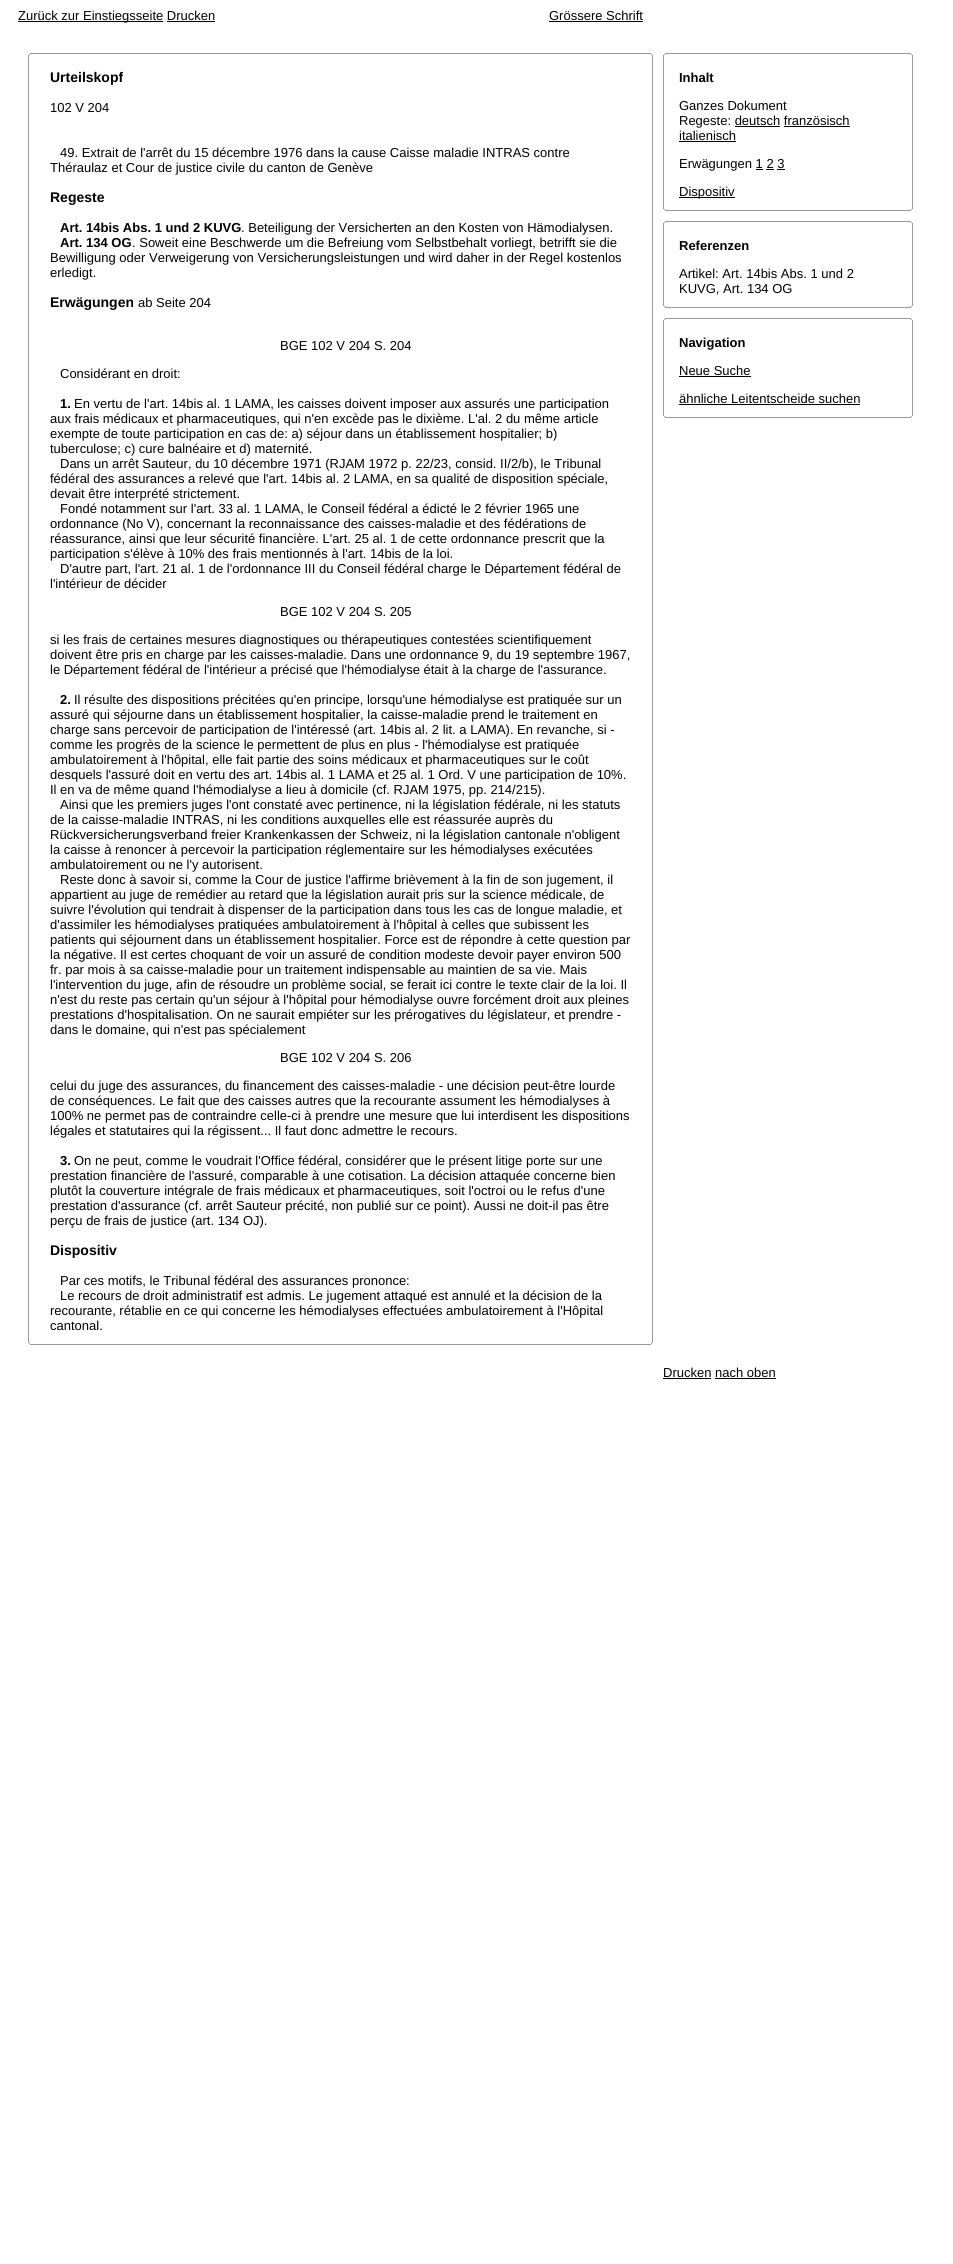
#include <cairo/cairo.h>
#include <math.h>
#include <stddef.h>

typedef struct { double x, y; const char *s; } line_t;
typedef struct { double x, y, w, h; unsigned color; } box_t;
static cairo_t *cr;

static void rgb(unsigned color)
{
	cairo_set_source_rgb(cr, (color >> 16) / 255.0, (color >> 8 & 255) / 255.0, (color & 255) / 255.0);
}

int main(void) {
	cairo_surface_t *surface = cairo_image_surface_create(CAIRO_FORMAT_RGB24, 953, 2264);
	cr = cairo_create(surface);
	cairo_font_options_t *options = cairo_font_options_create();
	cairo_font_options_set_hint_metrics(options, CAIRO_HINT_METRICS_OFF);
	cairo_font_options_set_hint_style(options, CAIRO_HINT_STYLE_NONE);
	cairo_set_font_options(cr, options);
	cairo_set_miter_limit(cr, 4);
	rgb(0xffffff);
	cairo_paint(cr);
	{
		static const box_t items[] = {
			{18, 21, 145, 1, 0x000000},
			{167, 21, 48, 1, 0x000000},
			{549, 21, 94, 1, 0x000000},
			{30, 53, 621, 1, 0x999999},
			{651, 54, 1, 1, 0x999999},
			{29, 54, 1, 1, 0x999999},
			{652, 55, 1, 1288, 0x999999},
			{28, 55, 1, 1288, 0x999999},
			{651, 1343, 1, 1, 0x999999},
			{29, 1343, 1, 1, 0x999999},
			{30, 1344, 621, 1, 0x999999},
			{665, 53, 246, 1, 0x999999},
			{911, 54, 1, 1, 0x999999},
			{664, 54, 1, 1, 0x999999},
			{912, 55, 1, 154, 0x999999},
			{663, 55, 1, 154, 0x999999},
			{735, 126, 45, 1, 0x000000},
			{784, 126, 66, 1, 0x000000},
			{679, 141, 57, 1, 0x000000},
			{756, 169, 7, 1, 0x000000},
			{766, 169, 8, 1, 0x000000},
			{777, 169, 8, 1, 0x000000},
			{679, 197, 56, 1, 0x000000},
			{911, 209, 1, 1, 0x999999},
			{664, 209, 1, 1, 0x999999},
			{665, 210, 246, 1, 0x999999},
			{665, 221, 246, 1, 0x999999},
			{911, 222, 1, 1, 0x999999},
			{664, 222, 1, 1, 0x999999},
			{912, 223, 1, 83, 0x999999},
			{663, 223, 1, 83, 0x999999},
			{911, 306, 1, 1, 0x999999},
			{664, 306, 1, 1, 0x999999},
			{665, 307, 246, 1, 0x999999},
			{665, 318, 246, 1, 0x999999},
			{911, 319, 1, 1, 0x999999},
			{664, 319, 1, 1, 0x999999},
			{912, 320, 1, 96, 0x999999},
			{663, 320, 1, 96, 0x999999},
			{679, 376, 72, 1, 0x000000},
			{679, 404, 181, 1, 0x000000},
			{911, 416, 1, 1, 0x999999},
			{664, 416, 1, 1, 0x999999},
			{665, 417, 246, 1, 0x999999},
			{663, 1378, 48, 1, 0x000000},
			{715, 1378, 61, 1, 0x000000},
		};
		for (size_t i = 0; i < sizeof items / sizeof *items; i++) {
			rgb(items[i].color);
			cairo_rectangle(cr, items[i].x, items[i].y, items[i].w, items[i].h);
			cairo_fill(cr);
		}
	}
	cairo_select_font_face(cr, "Liberation Sans", CAIRO_FONT_SLANT_NORMAL, CAIRO_FONT_WEIGHT_NORMAL);
	cairo_set_font_size(cr, 13);
	cairo_move_to(cr, 18, 20);
	cairo_show_text(cr, "Zurück zur Einstiegsseite Drucken");
	cairo_move_to(cr, 549, 20);
	cairo_show_text(cr, "Grössere Schrift");
	cairo_select_font_face(cr, "Liberation Sans", CAIRO_FONT_SLANT_NORMAL, CAIRO_FONT_WEIGHT_BOLD);
	cairo_set_font_size(cr, 14);
	cairo_move_to(cr, 50, 82);
	cairo_show_text(cr, "Urteilskopf");
	cairo_select_font_face(cr, "Liberation Sans", CAIRO_FONT_SLANT_NORMAL, CAIRO_FONT_WEIGHT_NORMAL);
	cairo_set_font_size(cr, 13);
	{
		static const line_t items[] = {
			{50, 112, "102 V 204"},
			{60, 157, "49. Extrait de l'arrêt du 15 décembre 1976 dans la cause Caisse maladie INTRAS contre"},
			{50, 172, "Théraulaz et Cour de justice civile du canton de Genève"},
		};
		for (size_t i = 0; i < sizeof items / sizeof *items; i++) {
			cairo_move_to(cr, items[i].x, items[i].y);
			cairo_show_text(cr, items[i].s);
		}
	}
	cairo_select_font_face(cr, "Liberation Sans", CAIRO_FONT_SLANT_NORMAL, CAIRO_FONT_WEIGHT_BOLD);
	cairo_set_font_size(cr, 14);
	cairo_move_to(cr, 50, 202);
	cairo_show_text(cr, "Regeste");
	cairo_select_font_face(cr, "Liberation Sans", CAIRO_FONT_SLANT_NORMAL, CAIRO_FONT_WEIGHT_NORMAL);
	cairo_set_font_size(cr, 13);
	cairo_move_to(cr, 241, 232);
	cairo_show_text(cr, ". Beteiligung der Versicherten an den Kosten von Hämodialysen.");
	cairo_select_font_face(cr, "Liberation Sans", CAIRO_FONT_SLANT_NORMAL, CAIRO_FONT_WEIGHT_BOLD);
	cairo_move_to(cr, 60, 247);
	cairo_show_text(cr, "Art. 134 OG");
	cairo_select_font_face(cr, "Liberation Sans", CAIRO_FONT_SLANT_NORMAL, CAIRO_FONT_WEIGHT_NORMAL);
	{
		static const line_t items[] = {
			{132, 247, ". Soweit eine Beschwerde um die Befreiung vom Selbstbehalt vorliegt, betrifft sie die"},
			{50, 262, "Bewilligung oder Verweigerung von Versicherungsleistungen und wird daher in der Regel kostenlos"},
			{50, 277, "erledigt."},
		};
		for (size_t i = 0; i < sizeof items / sizeof *items; i++) {
			cairo_move_to(cr, items[i].x, items[i].y);
			cairo_show_text(cr, items[i].s);
		}
	}
	cairo_select_font_face(cr, "Liberation Sans", CAIRO_FONT_SLANT_NORMAL, CAIRO_FONT_WEIGHT_BOLD);
	cairo_move_to(cr, 60, 232);
	cairo_show_text(cr, "Art. 14bis Abs. 1 und 2 KUVG");
	cairo_set_font_size(cr, 14);
	cairo_move_to(cr, 50, 307);
	cairo_show_text(cr, "Erwägungen");
	cairo_select_font_face(cr, "Liberation Sans", CAIRO_FONT_SLANT_NORMAL, CAIRO_FONT_WEIGHT_NORMAL);
	cairo_set_font_size(cr, 13);
	{
		static const line_t items[] = {
			{138, 307, "ab Seite 204"},
			{280, 350, "BGE 102 V 204 S. 204"},
			{60, 378, "Considérant en droit:"},
		};
		for (size_t i = 0; i < sizeof items / sizeof *items; i++) {
			cairo_move_to(cr, items[i].x, items[i].y);
			cairo_show_text(cr, items[i].s);
		}
	}
	cairo_select_font_face(cr, "Liberation Sans", CAIRO_FONT_SLANT_NORMAL, CAIRO_FONT_WEIGHT_BOLD);
	cairo_move_to(cr, 60, 408);
	cairo_show_text(cr, "1.");
	cairo_select_font_face(cr, "Liberation Sans", CAIRO_FONT_SLANT_NORMAL, CAIRO_FONT_WEIGHT_NORMAL);
	{
		static const line_t items[] = {
			{74, 408, "En vertu de l'art. 14bis al. 1 LAMA, les caisses doivent imposer aux assurés une participation"},
			{50, 423, "aux frais médicaux et pharmaceutiques, qui n'en excède pas le dixième. L'al. 2 du même article"},
			{50, 438, "exempte de toute participation en cas de: a) séjour dans un établissement hospitalier; b)"},
			{50, 453, "tuberculose; c) cure balnéaire et d) maternité."},
			{60, 468, "Dans un arrêt Sauteur, du 10 décembre 1971 (RJAM 1972 p. 22/23, consid. II/2/b), le Tribunal"},
			{50, 483, "fédéral des assurances a relevé que l'art. 14bis al. 2 LAMA, en sa qualité de disposition spéciale,"},
			{50, 498, "devait être interprété strictement."},
			{60, 513, "Fondé notamment sur l'art. 33 al. 1 LAMA, le Conseil fédéral a édicté le 2 février 1965 une"},
			{50, 528, "ordonnance (No V), concernant la reconnaissance des caisses-maladie et des fédérations de"},
			{50, 543, "réassurance, ainsi que leur sécurité financière. L'art. 25 al. 1 de cette ordonnance prescrit que la"},
			{50, 558, "participation s'élève à 10% des frais mentionnés à l'art. 14bis de la loi."},
			{60, 573, "D'autre part, l'art. 21 al. 1 de l'ordonnance III du Conseil fédéral charge le Département fédéral de"},
			{50, 588, "l'intérieur de décider"},
			{280, 616, "BGE 102 V 204 S. 205"},
			{50, 644, "si les frais de certaines mesures diagnostiques ou thérapeutiques contestées scientifiquement"},
			{50, 659, "doivent être pris en charge par les caisses-maladie. Dans une ordonnance 9, du 19 septembre 1967,"},
			{50, 674, "le Département fédéral de l'intérieur a précisé que l'hémodialyse était à la charge de l'assurance."},
		};
		for (size_t i = 0; i < sizeof items / sizeof *items; i++) {
			cairo_move_to(cr, items[i].x, items[i].y);
			cairo_show_text(cr, items[i].s);
		}
	}
	cairo_select_font_face(cr, "Liberation Sans", CAIRO_FONT_SLANT_NORMAL, CAIRO_FONT_WEIGHT_BOLD);
	cairo_move_to(cr, 60, 704);
	cairo_show_text(cr, "2.");
	cairo_select_font_face(cr, "Liberation Sans", CAIRO_FONT_SLANT_NORMAL, CAIRO_FONT_WEIGHT_NORMAL);
	{
		static const line_t items[] = {
			{74, 704, "Il résulte des dispositions précitées qu'en principe, lorsqu'une hémodialyse est pratiquée sur un"},
			{50, 719, "assuré qui séjourne dans un établissement hospitalier, la caisse-maladie prend le traitement en"},
			{50, 734, "charge sans percevoir de participation de l'intéressé (art. 14bis al. 2 lit. a LAMA). En revanche, si -"},
			{50, 749, "comme les progrès de la science le permettent de plus en plus - l'hémodialyse est pratiquée"},
			{50, 764, "ambulatoirement à l'hôpital, elle fait partie des soins médicaux et pharmaceutiques sur le coût"},
			{50, 779, "desquels l'assuré doit en vertu des art. 14bis al. 1 LAMA et 25 al. 1 Ord. V une participation de 10%."},
			{50, 794, "Il en va de même quand l'hémodialyse a lieu à domicile (cf. RJAM 1975, pp. 214/215)."},
			{60, 809, "Ainsi que les premiers juges l'ont constaté avec pertinence, ni la législation fédérale, ni les statuts"},
			{50, 824, "de la caisse-maladie INTRAS, ni les conditions auxquelles elle est réassurée auprès du"},
			{50, 839, "Rückversicherungsverband freier Krankenkassen der Schweiz, ni la législation cantonale n'obligent"},
			{50, 854, "la caisse à renoncer à percevoir la participation réglementaire sur les hémodialyses exécutées"},
			{50, 869, "ambulatoirement ou ne l'y autorisent."},
			{60, 884, "Reste donc à savoir si, comme la Cour de justice l'affirme brièvement à la fin de son jugement, il"},
			{50, 899, "appartient au juge de remédier au retard que la législation aurait pris sur la science médicale, de"},
			{50, 914, "suivre l'évolution qui tendrait à dispenser de la participation dans tous les cas de longue maladie, et"},
			{50, 929, "d'assimiler les hémodialyses pratiquées ambulatoirement à l'hôpital à celles que subissent les"},
			{50, 944, "patients qui séjournent dans un établissement hospitalier. Force est de répondre à cette question par"},
			{50, 959, "la négative. Il est certes choquant de voir un assuré de condition modeste devoir payer environ 500"},
			{50, 974, "fr. par mois à sa caisse-maladie pour un traitement indispensable au maintien de sa vie. Mais"},
			{50, 989, "l'intervention du juge, afin de résoudre un problème social, se ferait ici contre le texte clair de la loi. Il"},
			{50, 1004, "n'est du reste pas certain qu'un séjour à l'hôpital pour hémodialyse ouvre forcément droit aux pleines"},
			{50, 1019, "prestations d'hospitalisation. On ne saurait empiéter sur les prérogatives du législateur, et prendre -"},
			{50, 1034, "dans le domaine, qui n'est pas spécialement"},
			{280, 1062, "BGE 102 V 204 S. 206"},
			{50, 1090, "celui du juge des assurances, du financement des caisses-maladie - une décision peut-être lourde"},
			{50, 1105, "de conséquences. Le fait que des caisses autres que la recourante assument les hémodialyses à"},
			{50, 1120, "100% ne permet pas de contraindre celle-ci à prendre une mesure que lui interdisent les dispositions"},
			{50, 1135, "légales et statutaires qui la régissent... Il faut donc admettre le recours."},
		};
		for (size_t i = 0; i < sizeof items / sizeof *items; i++) {
			cairo_move_to(cr, items[i].x, items[i].y);
			cairo_show_text(cr, items[i].s);
		}
	}
	cairo_select_font_face(cr, "Liberation Sans", CAIRO_FONT_SLANT_NORMAL, CAIRO_FONT_WEIGHT_BOLD);
	cairo_move_to(cr, 60, 1165);
	cairo_show_text(cr, "3.");
	cairo_select_font_face(cr, "Liberation Sans", CAIRO_FONT_SLANT_NORMAL, CAIRO_FONT_WEIGHT_NORMAL);
	{
		static const line_t items[] = {
			{74, 1165, "On ne peut, comme le voudrait l'Office fédéral, considérer que le présent litige porte sur une"},
			{50, 1180, "prestation financière de l'assuré, comparable à une cotisation. La décision attaquée concerne bien"},
			{50, 1195, "plutôt la couverture intégrale de frais médicaux et pharmaceutiques, soit l'octroi ou le refus d'une"},
			{50, 1210, "prestation d'assurance (cf. arrêt Sauteur précité, non publié sur ce point). Aussi ne doit-il pas être"},
			{50, 1225, "perçu de frais de justice (art. 134 OJ)."},
		};
		for (size_t i = 0; i < sizeof items / sizeof *items; i++) {
			cairo_move_to(cr, items[i].x, items[i].y);
			cairo_show_text(cr, items[i].s);
		}
	}
	cairo_select_font_face(cr, "Liberation Sans", CAIRO_FONT_SLANT_NORMAL, CAIRO_FONT_WEIGHT_BOLD);
	cairo_set_font_size(cr, 14);
	cairo_move_to(cr, 50, 1255);
	cairo_show_text(cr, "Dispositiv");
	cairo_select_font_face(cr, "Liberation Sans", CAIRO_FONT_SLANT_NORMAL, CAIRO_FONT_WEIGHT_NORMAL);
	cairo_set_font_size(cr, 13);
	{
		static const line_t items[] = {
			{60, 1285, "Par ces motifs, le Tribunal fédéral des assurances prononce:"},
			{60, 1300, "Le recours de droit administratif est admis. Le jugement attaqué est annulé et la décision de la"},
			{50, 1315, "recourante, rétablie en ce qui concerne les hémodialyses effectuées ambulatoirement à l'Hôpital"},
			{50, 1330, "cantonal."},
		};
		for (size_t i = 0; i < sizeof items / sizeof *items; i++) {
			cairo_move_to(cr, items[i].x, items[i].y);
			cairo_show_text(cr, items[i].s);
		}
	}
	cairo_select_font_face(cr, "Liberation Sans", CAIRO_FONT_SLANT_NORMAL, CAIRO_FONT_WEIGHT_BOLD);
	cairo_move_to(cr, 679, 82);
	cairo_show_text(cr, "Inhalt");
	cairo_select_font_face(cr, "Liberation Sans", CAIRO_FONT_SLANT_NORMAL, CAIRO_FONT_WEIGHT_NORMAL);
	{
		static const line_t items[] = {
			{679, 110, "Ganzes Dokument"},
			{679, 125, "Regeste: deutsch französisch"},
			{679, 140, "italienisch"},
			{679, 168, "Erwägungen 1 2 3"},
			{679, 196, "Dispositiv"},
		};
		for (size_t i = 0; i < sizeof items / sizeof *items; i++) {
			cairo_move_to(cr, items[i].x, items[i].y);
			cairo_show_text(cr, items[i].s);
		}
	}
	cairo_select_font_face(cr, "Liberation Sans", CAIRO_FONT_SLANT_NORMAL, CAIRO_FONT_WEIGHT_BOLD);
	cairo_move_to(cr, 679, 250);
	cairo_show_text(cr, "Referenzen");
	cairo_select_font_face(cr, "Liberation Sans", CAIRO_FONT_SLANT_NORMAL, CAIRO_FONT_WEIGHT_NORMAL);
	cairo_move_to(cr, 679, 278);
	cairo_show_text(cr, "Artikel: Art. 14bis Abs. 1 und 2");
	cairo_move_to(cr, 679, 293);
	cairo_show_text(cr, "KUVG, Art. 134 OG");
	cairo_select_font_face(cr, "Liberation Sans", CAIRO_FONT_SLANT_NORMAL, CAIRO_FONT_WEIGHT_BOLD);
	cairo_move_to(cr, 679, 347);
	cairo_show_text(cr, "Navigation");
	cairo_select_font_face(cr, "Liberation Sans", CAIRO_FONT_SLANT_NORMAL, CAIRO_FONT_WEIGHT_NORMAL);
	{
		static const line_t items[] = {
			{679, 375, "Neue Suche"},
			{679, 403, "ähnliche Leitentscheide suchen"},
			{663, 1377, "Drucken nach oben"},
		};
		for (size_t i = 0; i < sizeof items / sizeof *items; i++) {
			cairo_move_to(cr, items[i].x, items[i].y);
			cairo_show_text(cr, items[i].s);
		}
	}
	cairo_surface_write_to_png(surface, "page.png");
	cairo_font_options_destroy(options);
	cairo_destroy(cr);
	cairo_surface_destroy(surface);
	return 0;
}
